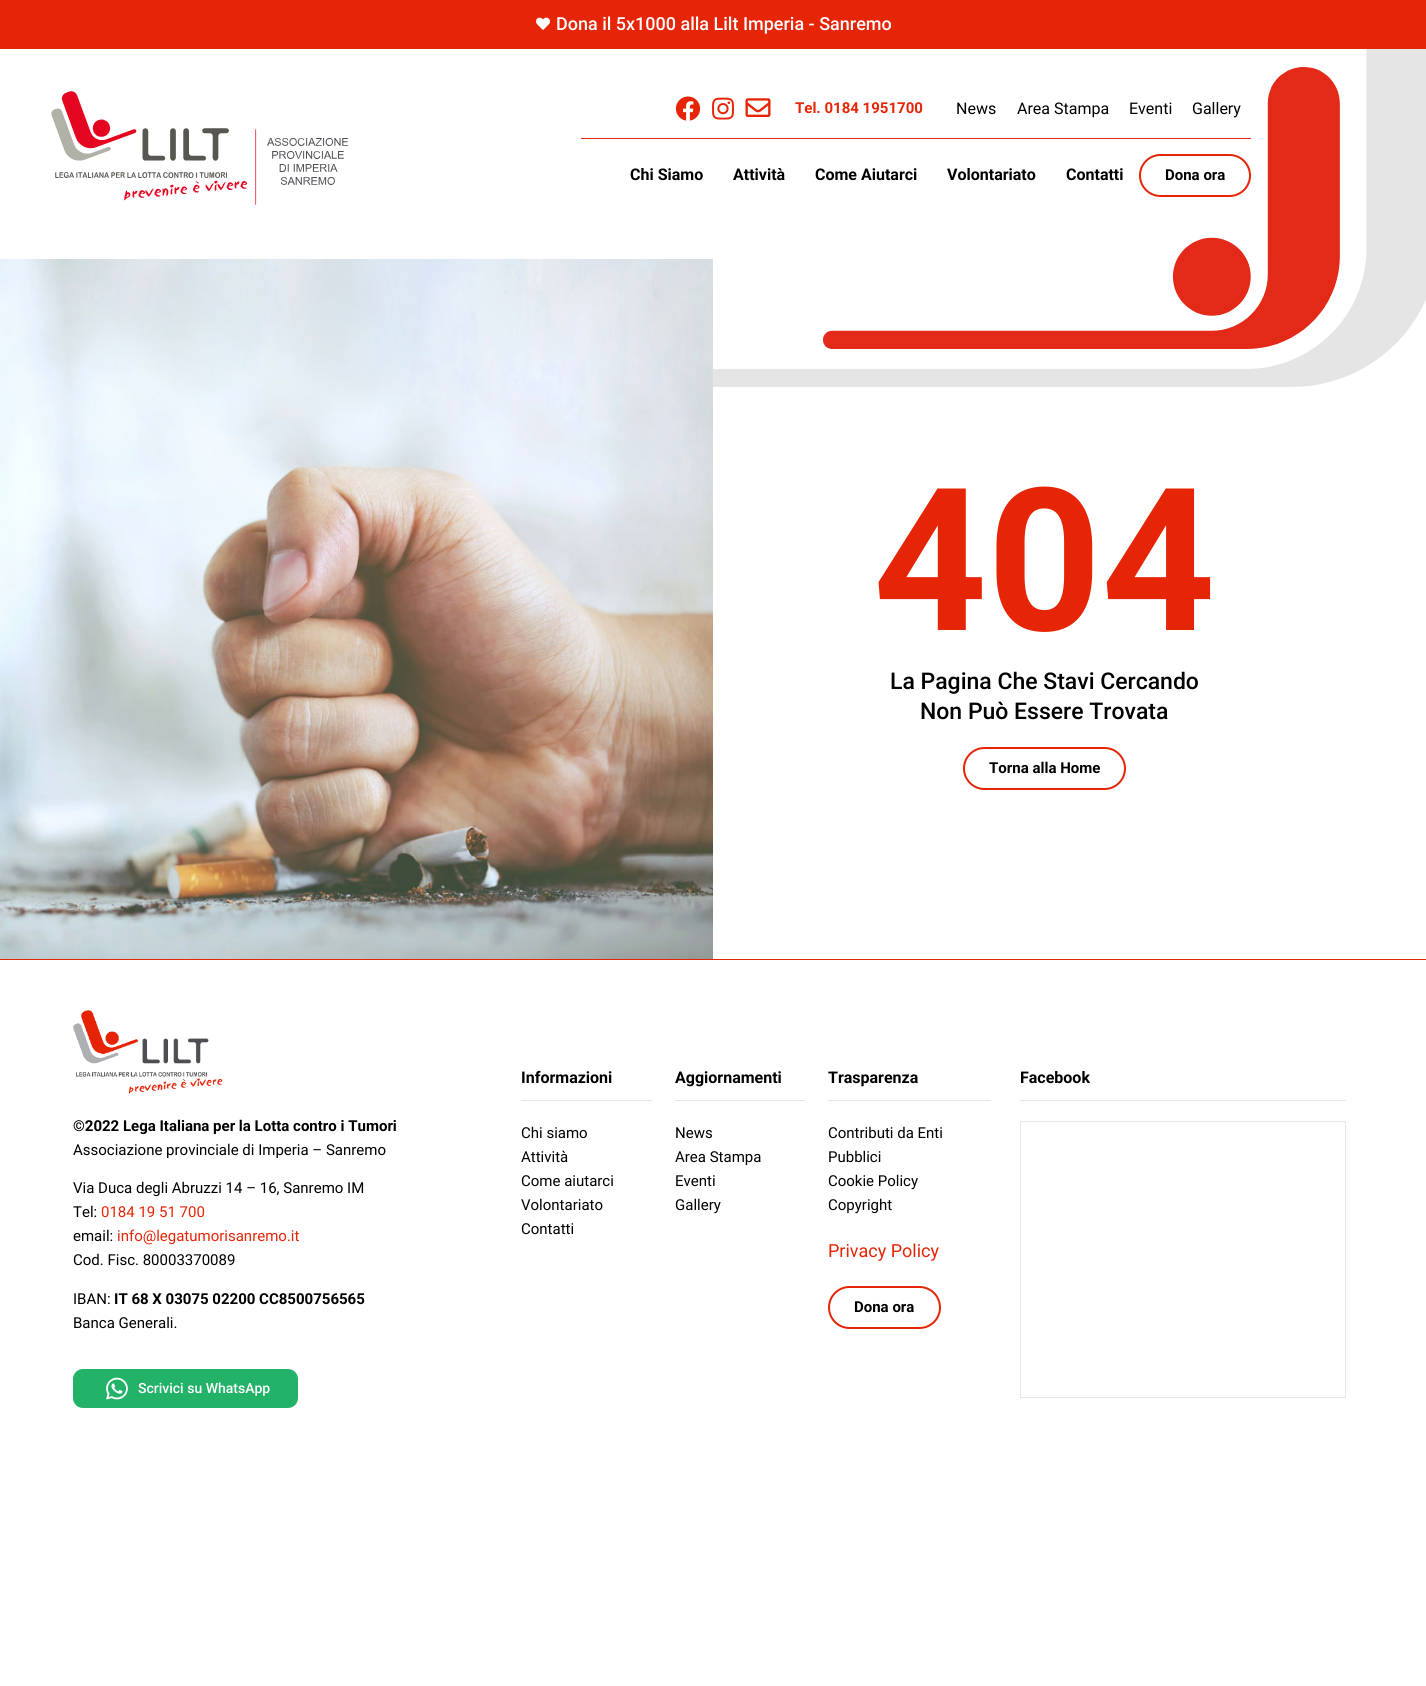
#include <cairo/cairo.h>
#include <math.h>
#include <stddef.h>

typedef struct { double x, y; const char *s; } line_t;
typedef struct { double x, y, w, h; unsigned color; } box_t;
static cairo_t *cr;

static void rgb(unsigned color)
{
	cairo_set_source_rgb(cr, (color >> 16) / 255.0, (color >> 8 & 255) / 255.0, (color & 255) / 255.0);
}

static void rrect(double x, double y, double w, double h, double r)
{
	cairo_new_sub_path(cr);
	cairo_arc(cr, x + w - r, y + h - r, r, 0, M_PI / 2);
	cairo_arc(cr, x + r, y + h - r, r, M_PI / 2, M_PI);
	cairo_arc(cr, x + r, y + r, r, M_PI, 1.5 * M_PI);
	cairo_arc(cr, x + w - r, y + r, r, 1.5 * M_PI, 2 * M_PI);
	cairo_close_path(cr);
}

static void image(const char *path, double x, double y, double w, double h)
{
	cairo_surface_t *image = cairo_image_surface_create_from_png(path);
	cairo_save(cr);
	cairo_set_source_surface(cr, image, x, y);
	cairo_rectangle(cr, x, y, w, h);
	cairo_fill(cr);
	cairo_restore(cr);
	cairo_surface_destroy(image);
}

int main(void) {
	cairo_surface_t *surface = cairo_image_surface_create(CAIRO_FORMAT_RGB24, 1426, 1686);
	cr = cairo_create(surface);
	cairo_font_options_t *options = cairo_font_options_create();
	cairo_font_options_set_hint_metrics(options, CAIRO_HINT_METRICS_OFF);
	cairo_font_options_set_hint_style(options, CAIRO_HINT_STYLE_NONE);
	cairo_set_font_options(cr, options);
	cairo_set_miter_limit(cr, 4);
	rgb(0xffffff);
	cairo_paint(cr);
	rgb(0xe62506);
	cairo_rectangle(cr, 0, 0, 1426, 49);
	cairo_fill(cr);
	image("img/1.png", 536, 17, 14, 13);
	image("img/2.png", 713, 49, 713, 338);
	image("img/3.png", 51, 91, 298, 114);
	image("img/4.png", 675, 96, 26, 25);
	image("img/5.png", 712, 97, 22, 23);
	image("img/6.png", 745, 98, 26, 19);
	cairo_rectangle(cr, 581, 138, 670, 1);
	cairo_fill(cr);
	rrect(1140, 155, 110, 41, 20.5);
	cairo_stroke(cr);
	image("img/7.png", 0, 259, 713, 700);
	rrect(964, 748, 161, 41, 20.5);
	cairo_stroke(cr);
	{
		static const box_t items[] = {
			{0, 959, 1426, 1, 0xe62506},
			{521, 1100, 131, 1, 0xe6e6e6},
			{675, 1100, 130, 1, 0xe6e6e6},
			{828, 1100, 163, 1, 0xe6e6e6},
		};
		for (size_t i = 0; i < sizeof items / sizeof *items; i++) {
			rgb(items[i].color);
			cairo_rectangle(cr, items[i].x, items[i].y, items[i].w, items[i].h);
			cairo_fill(cr);
		}
	}
	rrect(829, 1287, 111, 41, 20.5);
	rgb(0xe62506);
	cairo_stroke(cr);
	rgb(0xe6e6e6);
	cairo_rectangle(cr, 1020, 1100, 326, 1);
	cairo_fill(cr);
	cairo_rectangle(cr, 1020.5, 1121.5, 325, 276);
	cairo_set_line_width(cr, 1);
	cairo_stroke(cr);
	image("img/8.png", 73, 1010, 150, 84);
	rgb(0x23b368);
	rrect(73, 1369, 225, 39, 10);
	cairo_fill(cr);
	image("img/9.png", 106, 1377, 22, 23);
	cairo_select_font_face(cr, "Roboto Medium", CAIRO_FONT_SLANT_NORMAL, CAIRO_FONT_WEIGHT_NORMAL);
	cairo_set_font_size(cr, 18);
	rgb(0xffffff);
	cairo_move_to(cr, 556, 30);
	cairo_show_text(cr, "Dona il 5x1000 alla Lilt Imperia - Sanremo");
	cairo_select_font_face(cr, "Roboto", CAIRO_FONT_SLANT_NORMAL, CAIRO_FONT_WEIGHT_BOLD);
	cairo_set_font_size(cr, 15);
	rgb(0xe62506);
	cairo_move_to(cr, 795, 113);
	cairo_show_text(cr, "Tel. 0184 1951700");
	cairo_select_font_face(cr, "Roboto", CAIRO_FONT_SLANT_NORMAL, CAIRO_FONT_WEIGHT_NORMAL);
	cairo_set_font_size(cr, 16);
	rgb(0x000000);
	{
		static const line_t items[] = {
			{956, 114, "News"},
			{1017, 114, "Area Stampa"},
			{1129, 114, "Eventi"},
			{1192, 114, "Gallery"},
		};
		for (size_t i = 0; i < sizeof items / sizeof *items; i++) {
			cairo_move_to(cr, items[i].x, items[i].y);
			cairo_show_text(cr, items[i].s);
		}
	}
	cairo_select_font_face(cr, "Roboto", CAIRO_FONT_SLANT_NORMAL, CAIRO_FONT_WEIGHT_BOLD);
	{
		static const line_t items[] = {
			{630, 180, "Chi Siamo"},
			{733, 180, "Attività"},
			{815, 180, "Come Aiutarci"},
			{947, 180, "Volontariato"},
			{1066, 180, "Contatti"},
		};
		for (size_t i = 0; i < sizeof items / sizeof *items; i++) {
			cairo_move_to(cr, items[i].x, items[i].y);
			cairo_show_text(cr, items[i].s);
		}
	}
	cairo_set_font_size(cr, 15);
	cairo_move_to(cr, 1165, 180);
	cairo_show_text(cr, "Dona ora");
	cairo_set_font_size(cr, 199);
	rgb(0xe62506);
	cairo_move_to(cr, 873, 630);
	cairo_show_text(cr, "404");
	cairo_select_font_face(cr, "Roboto Medium", CAIRO_FONT_SLANT_NORMAL, CAIRO_FONT_WEIGHT_NORMAL);
	cairo_set_font_size(cr, 23);
	rgb(0x000000);
	cairo_move_to(cr, 890, 689);
	cairo_show_text(cr, "La Pagina Che Stavi Cercando");
	cairo_move_to(cr, 920, 719);
	cairo_show_text(cr, "Non Può Essere Trovata");
	cairo_select_font_face(cr, "Roboto", CAIRO_FONT_SLANT_NORMAL, CAIRO_FONT_WEIGHT_BOLD);
	cairo_set_font_size(cr, 15);
	cairo_move_to(cr, 989, 773);
	cairo_show_text(cr, "Torna alla Home");
	cairo_set_font_size(cr, 16);
	cairo_move_to(cr, 521, 1083);
	cairo_show_text(cr, "Informazioni");
	cairo_select_font_face(cr, "Roboto", CAIRO_FONT_SLANT_NORMAL, CAIRO_FONT_WEIGHT_NORMAL);
	cairo_set_font_size(cr, 15);
	{
		static const line_t items[] = {
			{521, 1138, "Chi siamo"},
			{521, 1162, "Attività"},
			{521, 1186, "Come aiutarci"},
			{521, 1210, "Volontariato"},
			{521, 1234, "Contatti"},
		};
		for (size_t i = 0; i < sizeof items / sizeof *items; i++) {
			cairo_move_to(cr, items[i].x, items[i].y);
			cairo_show_text(cr, items[i].s);
		}
	}
	cairo_select_font_face(cr, "Roboto", CAIRO_FONT_SLANT_NORMAL, CAIRO_FONT_WEIGHT_BOLD);
	cairo_set_font_size(cr, 16);
	cairo_move_to(cr, 675, 1083);
	cairo_show_text(cr, "Aggiornamenti");
	cairo_select_font_face(cr, "Roboto", CAIRO_FONT_SLANT_NORMAL, CAIRO_FONT_WEIGHT_NORMAL);
	cairo_set_font_size(cr, 15);
	{
		static const line_t items[] = {
			{675, 1138, "News"},
			{675, 1162, "Area Stampa"},
			{675, 1186, "Eventi"},
			{675, 1210, "Gallery"},
		};
		for (size_t i = 0; i < sizeof items / sizeof *items; i++) {
			cairo_move_to(cr, items[i].x, items[i].y);
			cairo_show_text(cr, items[i].s);
		}
	}
	cairo_select_font_face(cr, "Roboto", CAIRO_FONT_SLANT_NORMAL, CAIRO_FONT_WEIGHT_BOLD);
	cairo_set_font_size(cr, 16);
	cairo_move_to(cr, 828, 1083);
	cairo_show_text(cr, "Trasparenza");
	cairo_select_font_face(cr, "Roboto", CAIRO_FONT_SLANT_NORMAL, CAIRO_FONT_WEIGHT_NORMAL);
	cairo_set_font_size(cr, 15);
	{
		static const line_t items[] = {
			{828, 1138, "Contributi da Enti"},
			{828, 1162, "Pubblici"},
			{828, 1186, "Cookie Policy"},
			{828, 1210, "Copyright"},
		};
		for (size_t i = 0; i < sizeof items / sizeof *items; i++) {
			cairo_move_to(cr, items[i].x, items[i].y);
			cairo_show_text(cr, items[i].s);
		}
	}
	cairo_set_font_size(cr, 18);
	rgb(0xe62506);
	cairo_move_to(cr, 828, 1257);
	cairo_show_text(cr, "Privacy Policy");
	cairo_select_font_face(cr, "Roboto", CAIRO_FONT_SLANT_NORMAL, CAIRO_FONT_WEIGHT_BOLD);
	cairo_set_font_size(cr, 15);
	rgb(0x000000);
	cairo_move_to(cr, 854, 1312);
	cairo_show_text(cr, "Dona ora");
	cairo_set_font_size(cr, 16);
	cairo_move_to(cr, 1020, 1083);
	cairo_show_text(cr, "Facebook");
	cairo_set_font_size(cr, 15);
	cairo_move_to(cr, 73, 1131);
	cairo_show_text(cr, "©2022 Lega Italiana per la Lotta contro i Tumori");
	cairo_select_font_face(cr, "Roboto", CAIRO_FONT_SLANT_NORMAL, CAIRO_FONT_WEIGHT_NORMAL);
	{
		static const line_t items[] = {
			{73, 1155, "Associazione provinciale di Imperia – Sanremo"},
			{73, 1193, "Via Duca degli Abruzzi 14 – 16, Sanremo IM"},
			{73, 1217, "Tel:"},
		};
		for (size_t i = 0; i < sizeof items / sizeof *items; i++) {
			cairo_move_to(cr, items[i].x, items[i].y);
			cairo_show_text(cr, items[i].s);
		}
	}
	rgb(0xe62506);
	cairo_move_to(cr, 101, 1217);
	cairo_show_text(cr, "0184 19 51 700");
	rgb(0x000000);
	cairo_move_to(cr, 73, 1241);
	cairo_show_text(cr, "email:");
	rgb(0xe62506);
	cairo_move_to(cr, 117, 1241);
	cairo_show_text(cr, "info@legatumorisanremo.it");
	rgb(0x000000);
	cairo_move_to(cr, 73, 1265);
	cairo_show_text(cr, "Cod. Fisc. 80003370089");
	cairo_move_to(cr, 73, 1304);
	cairo_show_text(cr, "IBAN:");
	cairo_select_font_face(cr, "Roboto", CAIRO_FONT_SLANT_NORMAL, CAIRO_FONT_WEIGHT_BOLD);
	cairo_move_to(cr, 114, 1304);
	cairo_show_text(cr, "IT 68 X 03075 02200 CC8500756565");
	cairo_select_font_face(cr, "Roboto", CAIRO_FONT_SLANT_NORMAL, CAIRO_FONT_WEIGHT_NORMAL);
	cairo_move_to(cr, 73, 1328);
	cairo_show_text(cr, "Banca Generali.");
	cairo_select_font_face(cr, "Roboto Medium", CAIRO_FONT_SLANT_NORMAL, CAIRO_FONT_WEIGHT_NORMAL);
	cairo_set_font_size(cr, 14);
	rgb(0xffffff);
	cairo_move_to(cr, 138, 1393);
	cairo_show_text(cr, "Scrivici su WhatsApp");
	cairo_surface_write_to_png(surface, "page.png");
	cairo_font_options_destroy(options);
	cairo_destroy(cr);
	cairo_surface_destroy(surface);
	return 0;
}
